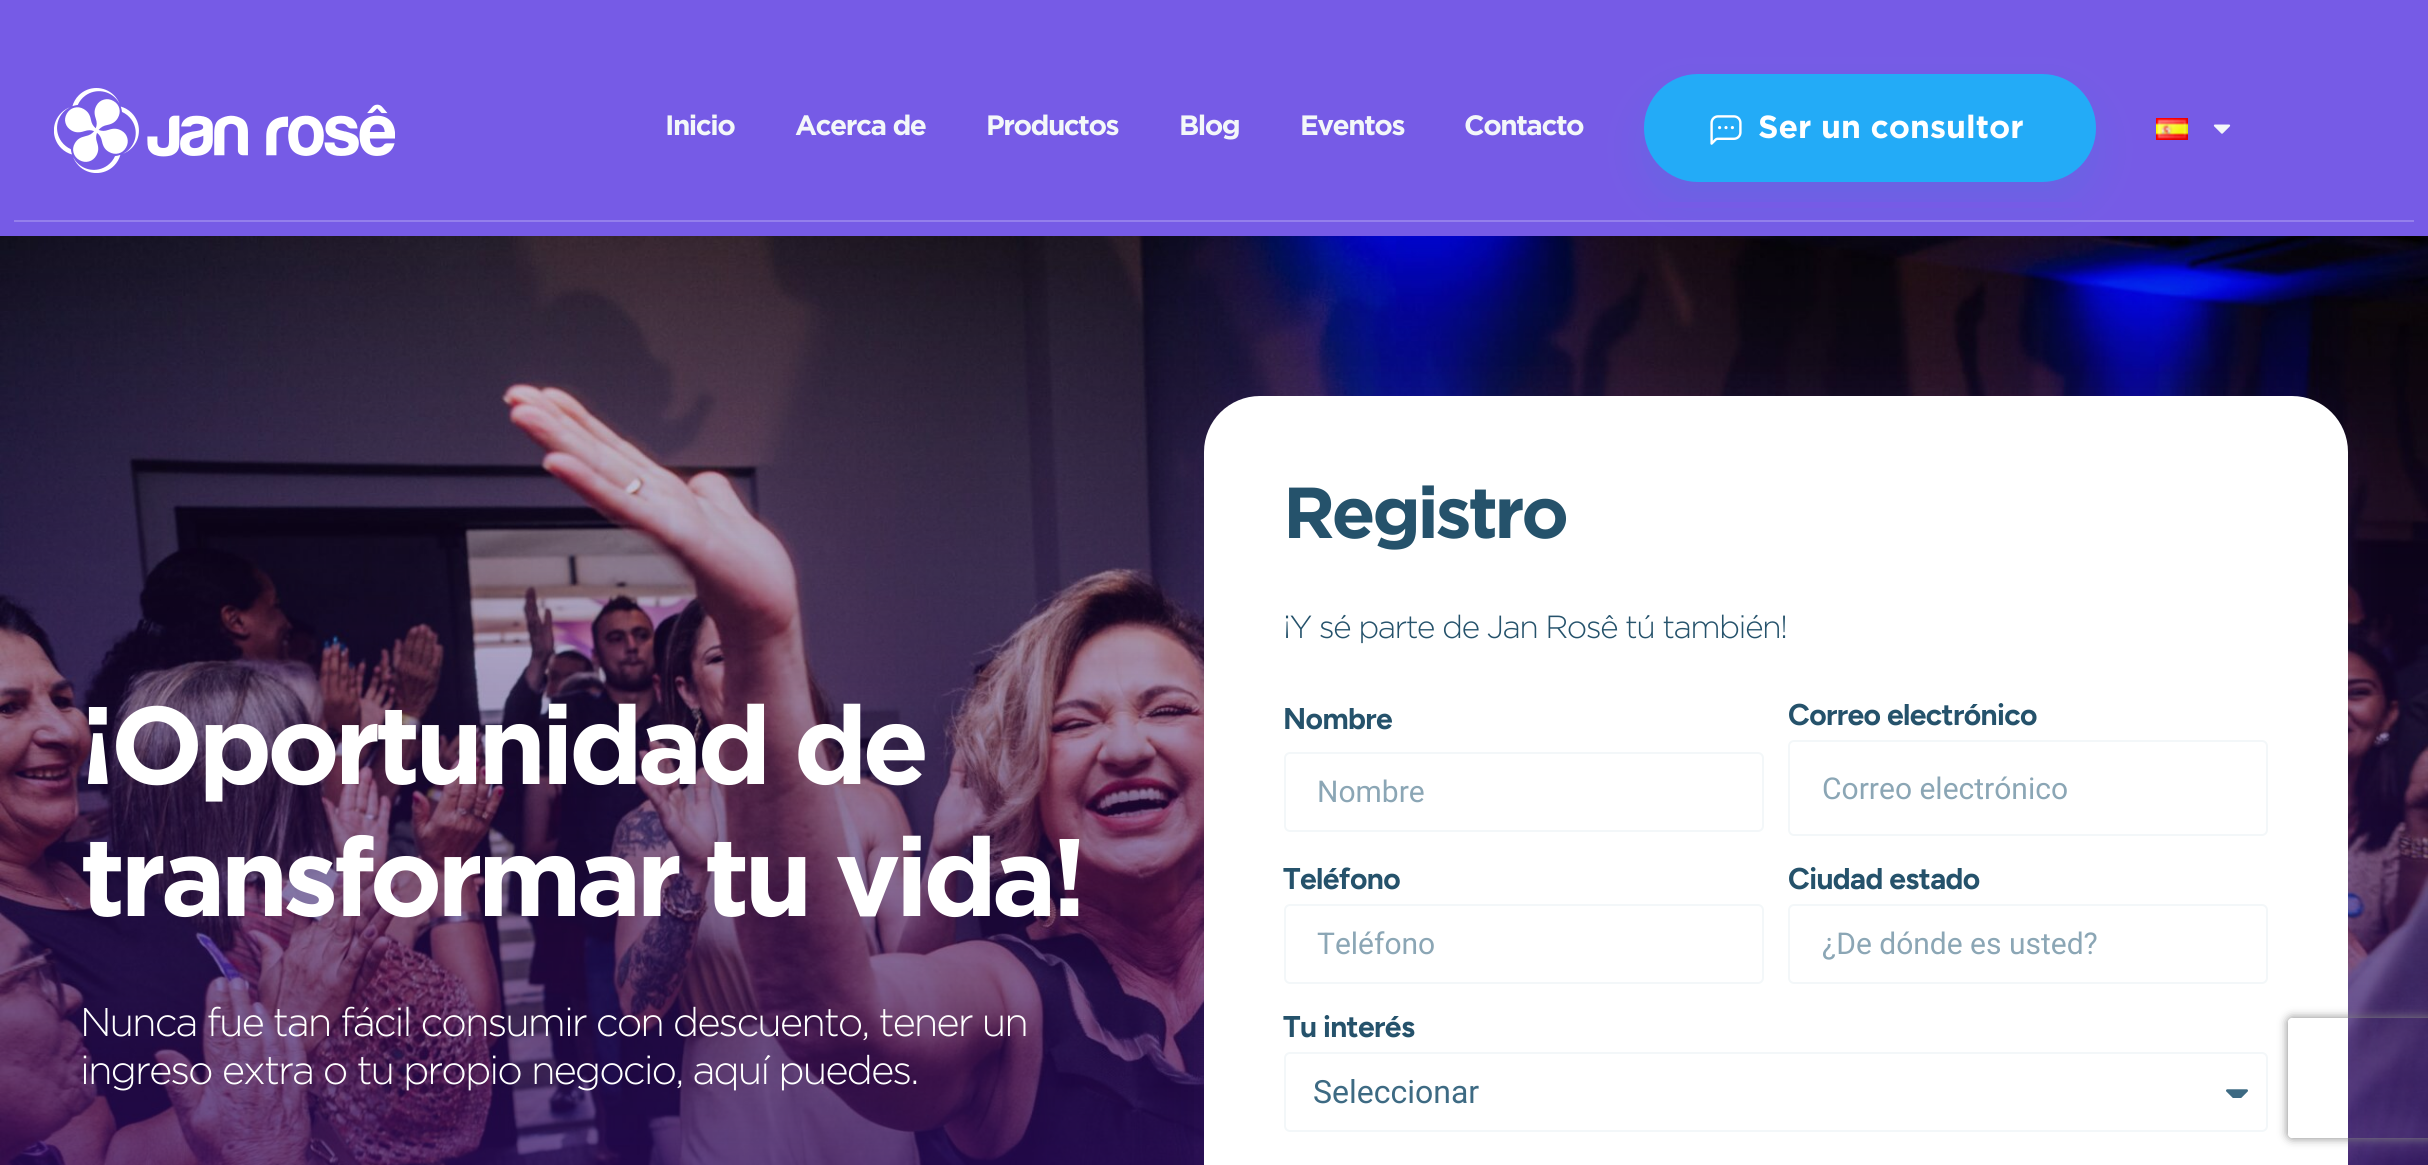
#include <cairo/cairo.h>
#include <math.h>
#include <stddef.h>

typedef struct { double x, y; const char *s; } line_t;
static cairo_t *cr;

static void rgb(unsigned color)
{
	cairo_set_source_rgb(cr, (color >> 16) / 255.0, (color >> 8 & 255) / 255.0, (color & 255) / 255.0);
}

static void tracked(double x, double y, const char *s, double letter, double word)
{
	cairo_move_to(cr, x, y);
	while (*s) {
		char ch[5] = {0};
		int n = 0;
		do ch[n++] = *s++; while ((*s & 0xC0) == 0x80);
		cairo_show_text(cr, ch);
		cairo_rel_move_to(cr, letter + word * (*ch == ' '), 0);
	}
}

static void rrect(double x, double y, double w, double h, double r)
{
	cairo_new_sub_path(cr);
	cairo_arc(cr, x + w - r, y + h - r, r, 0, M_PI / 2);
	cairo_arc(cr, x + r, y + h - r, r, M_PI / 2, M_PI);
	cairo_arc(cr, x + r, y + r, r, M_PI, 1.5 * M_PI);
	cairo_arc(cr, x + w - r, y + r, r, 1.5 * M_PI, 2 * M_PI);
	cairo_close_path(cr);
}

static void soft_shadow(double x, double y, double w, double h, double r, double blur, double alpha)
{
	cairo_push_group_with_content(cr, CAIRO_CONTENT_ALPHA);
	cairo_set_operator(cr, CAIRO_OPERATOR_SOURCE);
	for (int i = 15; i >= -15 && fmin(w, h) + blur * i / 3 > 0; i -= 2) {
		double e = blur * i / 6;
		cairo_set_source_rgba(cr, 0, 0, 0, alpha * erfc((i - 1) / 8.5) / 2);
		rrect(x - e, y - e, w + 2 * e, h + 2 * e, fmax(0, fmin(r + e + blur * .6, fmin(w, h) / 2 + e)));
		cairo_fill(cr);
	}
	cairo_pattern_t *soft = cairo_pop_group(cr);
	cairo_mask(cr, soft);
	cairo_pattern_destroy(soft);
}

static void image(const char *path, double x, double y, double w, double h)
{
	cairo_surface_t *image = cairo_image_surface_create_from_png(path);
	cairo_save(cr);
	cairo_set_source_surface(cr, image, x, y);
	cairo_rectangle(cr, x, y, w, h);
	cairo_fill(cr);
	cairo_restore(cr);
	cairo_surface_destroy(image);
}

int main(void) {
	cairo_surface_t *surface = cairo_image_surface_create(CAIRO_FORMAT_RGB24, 2428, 1165);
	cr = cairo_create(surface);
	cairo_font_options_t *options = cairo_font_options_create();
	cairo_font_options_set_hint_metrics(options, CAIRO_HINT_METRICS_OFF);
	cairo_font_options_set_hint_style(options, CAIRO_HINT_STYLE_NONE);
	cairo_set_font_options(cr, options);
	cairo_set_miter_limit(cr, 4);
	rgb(0x765be6);
	cairo_paint(cr);
	image("img/1.png", 54, 88, 341, 85);
	rgb(0x947fec);
	cairo_rectangle(cr, 14, 220, 2400, 2);
	cairo_fill(cr);
	image("img/5.png", 0, 236, 2428, 929);
	rgb(0x1f93d3);
	soft_shadow(1644, 94, 452, 108, 54, 20, 0.15);
	rgb(0x23abf7);
	rrect(1645, 75, 450, 106, 53);
	cairo_fill_preserve(cr);
	cairo_stroke(cr);
	image("img/2.png", 1710, 115, 32, 30);
	rgb(0x765be6);
	cairo_rectangle(cr, 1658, 202, 424, 6);
	cairo_fill(cr);
	image("img/3.png", 2156, 118, 32, 22);
	image("img/4.png", 2213, 124, 18, 10);
	rgb(0x874be3);
	soft_shadow(1204, 404, 1144, 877, 56, 20, 0.1);
	rgb(0xffffff);
	rrect(1204, 396, 1144, 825, 56);
	cairo_fill(cr);
	rrect(1285, 753, 478, 78, 5);
	rgb(0xf3f7f9);
	cairo_stroke(cr);
	rrect(1789, 741, 478, 94, 5);
	cairo_stroke(cr);
	rrect(1285, 905, 478, 78, 5);
	cairo_stroke(cr);
	rrect(1789, 905, 478, 78, 5);
	cairo_stroke(cr);
	rrect(1285, 1053, 982, 78, 5);
	cairo_stroke(cr);
	image("img/6.png", 2226, 1089, 22, 9);
	cairo_save(cr);
	cairo_set_fill_rule(cr, CAIRO_FILL_RULE_EVEN_ODD);
	cairo_new_path(cr);
	cairo_move_to(cr, 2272, 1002);
	cairo_line_to(cr, 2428, 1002);
	cairo_line_to(cr, 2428, 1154);
	cairo_line_to(cr, 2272, 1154);
	cairo_close_path(cr);
	cairo_move_to(cr, 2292, 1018);
	cairo_line_to(cr, 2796, 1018);
	cairo_curve_to(cr, 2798, 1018, 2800, 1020, 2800, 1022);
	cairo_line_to(cr, 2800, 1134);
	cairo_curve_to(cr, 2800, 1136, 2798, 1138, 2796, 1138);
	cairo_line_to(cr, 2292, 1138);
	cairo_curve_to(cr, 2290, 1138, 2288, 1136, 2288, 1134);
	cairo_line_to(cr, 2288, 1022);
	cairo_curve_to(cr, 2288, 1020, 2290, 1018, 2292, 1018);
	cairo_close_path(cr);
	cairo_clip(cr);
	rgb(0x808080);
	soft_shadow(2288, 1018, 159, 120, 4, 5, 1);
	cairo_restore(cr);
	cairo_select_font_face(cr, "Gotham", CAIRO_FONT_SLANT_NORMAL, CAIRO_FONT_WEIGHT_BOLD);
	cairo_set_font_size(cr, 28);
	{
		static const line_t items[] = {
			{665, 135, "Inicio"},
			{795, 135, "Acerca de"},
			{986, 135, "Productos"},
			{1179, 135, "Blog"},
			{1300, 135, "Eventos"},
			{1464, 135, "Contacto"},
		};
		for (size_t i = 0; i < sizeof items / sizeof *items; i++) {
			tracked(items[i].x, items[i].y, items[i].s, -1.5, 0);
		}
	}
	cairo_set_font_size(cr, 32);
	rgb(0xffffff);
	cairo_move_to(cr, 1758, 138);
	cairo_show_text(cr, "Ser un consultor");
	cairo_set_font_size(cr, 110);
	tracked(80, 784, "¡Oportunidad de", -5.5, 0);
	tracked(80, 916, "transformar tu vida!", -5.5, 0);
	cairo_select_font_face(cr, "Gotham Light", CAIRO_FONT_SLANT_NORMAL, CAIRO_FONT_WEIGHT_NORMAL);
	cairo_set_font_size(cr, 40);
	tracked(80, 1036, "Nunca fue tan fácil consumir con descuento, tener un", -2, 0);
	tracked(80, 1084, "ingreso extra o tu propio negocio, aquí puedes.", -2, 0);
	cairo_select_font_face(cr, "Gotham", CAIRO_FONT_SLANT_NORMAL, CAIRO_FONT_WEIGHT_BOLD);
	cairo_set_font_size(cr, 72);
	rgb(0x25526b);
	tracked(1283, 538, "Registro", -3.5, 0);
	cairo_select_font_face(cr, "Gotham Light", CAIRO_FONT_SLANT_NORMAL, CAIRO_FONT_WEIGHT_NORMAL);
	cairo_set_font_size(cr, 32);
	tracked(1283, 638, "¡Y sé parte de Jan Rosê tú también!", -1.6, 0);
	cairo_select_font_face(cr, "Figtree", CAIRO_FONT_SLANT_NORMAL, CAIRO_FONT_WEIGHT_BOLD);
	cairo_set_font_size(cr, 30);
	tracked(1283, 729, "Nombre", -0.6, 0);
	cairo_select_font_face(cr, "Roboto", CAIRO_FONT_SLANT_NORMAL, CAIRO_FONT_WEIGHT_NORMAL);
	rgb(0x8ba6b5);
	cairo_move_to(cr, 1317, 802);
	cairo_show_text(cr, "Nombre");
	cairo_select_font_face(cr, "Figtree", CAIRO_FONT_SLANT_NORMAL, CAIRO_FONT_WEIGHT_BOLD);
	rgb(0x25526b);
	tracked(1788, 725, "Correo electrónico", -0.6, 0);
	cairo_select_font_face(cr, "Roboto", CAIRO_FONT_SLANT_NORMAL, CAIRO_FONT_WEIGHT_NORMAL);
	rgb(0x8ba6b5);
	cairo_move_to(cr, 1822, 799);
	cairo_show_text(cr, "Correo electrónico");
	cairo_select_font_face(cr, "Figtree", CAIRO_FONT_SLANT_NORMAL, CAIRO_FONT_WEIGHT_BOLD);
	rgb(0x25526b);
	tracked(1283, 889, "Teléfono", -0.6, 0);
	cairo_select_font_face(cr, "Roboto", CAIRO_FONT_SLANT_NORMAL, CAIRO_FONT_WEIGHT_NORMAL);
	rgb(0x8ba6b5);
	cairo_move_to(cr, 1317, 954);
	cairo_show_text(cr, "Teléfono");
	cairo_select_font_face(cr, "Figtree", CAIRO_FONT_SLANT_NORMAL, CAIRO_FONT_WEIGHT_BOLD);
	rgb(0x25526b);
	tracked(1788, 889, "Ciudad estado", -0.6, 0);
	cairo_select_font_face(cr, "Roboto", CAIRO_FONT_SLANT_NORMAL, CAIRO_FONT_WEIGHT_NORMAL);
	rgb(0x8ba6b5);
	cairo_move_to(cr, 1822, 954);
	cairo_show_text(cr, "¿De dónde es usted?");
	cairo_select_font_face(cr, "Figtree", CAIRO_FONT_SLANT_NORMAL, CAIRO_FONT_WEIGHT_BOLD);
	rgb(0x25526b);
	tracked(1283, 1037, "Tu interés", -0.6, 0);
	cairo_select_font_face(cr, "Roboto", CAIRO_FONT_SLANT_NORMAL, CAIRO_FONT_WEIGHT_NORMAL);
	cairo_set_font_size(cr, 32);
	rgb(0x3d6a83);
	cairo_move_to(cr, 1313, 1103);
	cairo_show_text(cr, "Seleccionar");
	cairo_surface_write_to_png(surface, "page.png");
	cairo_font_options_destroy(options);
	cairo_destroy(cr);
	cairo_surface_destroy(surface);
	return 0;
}
